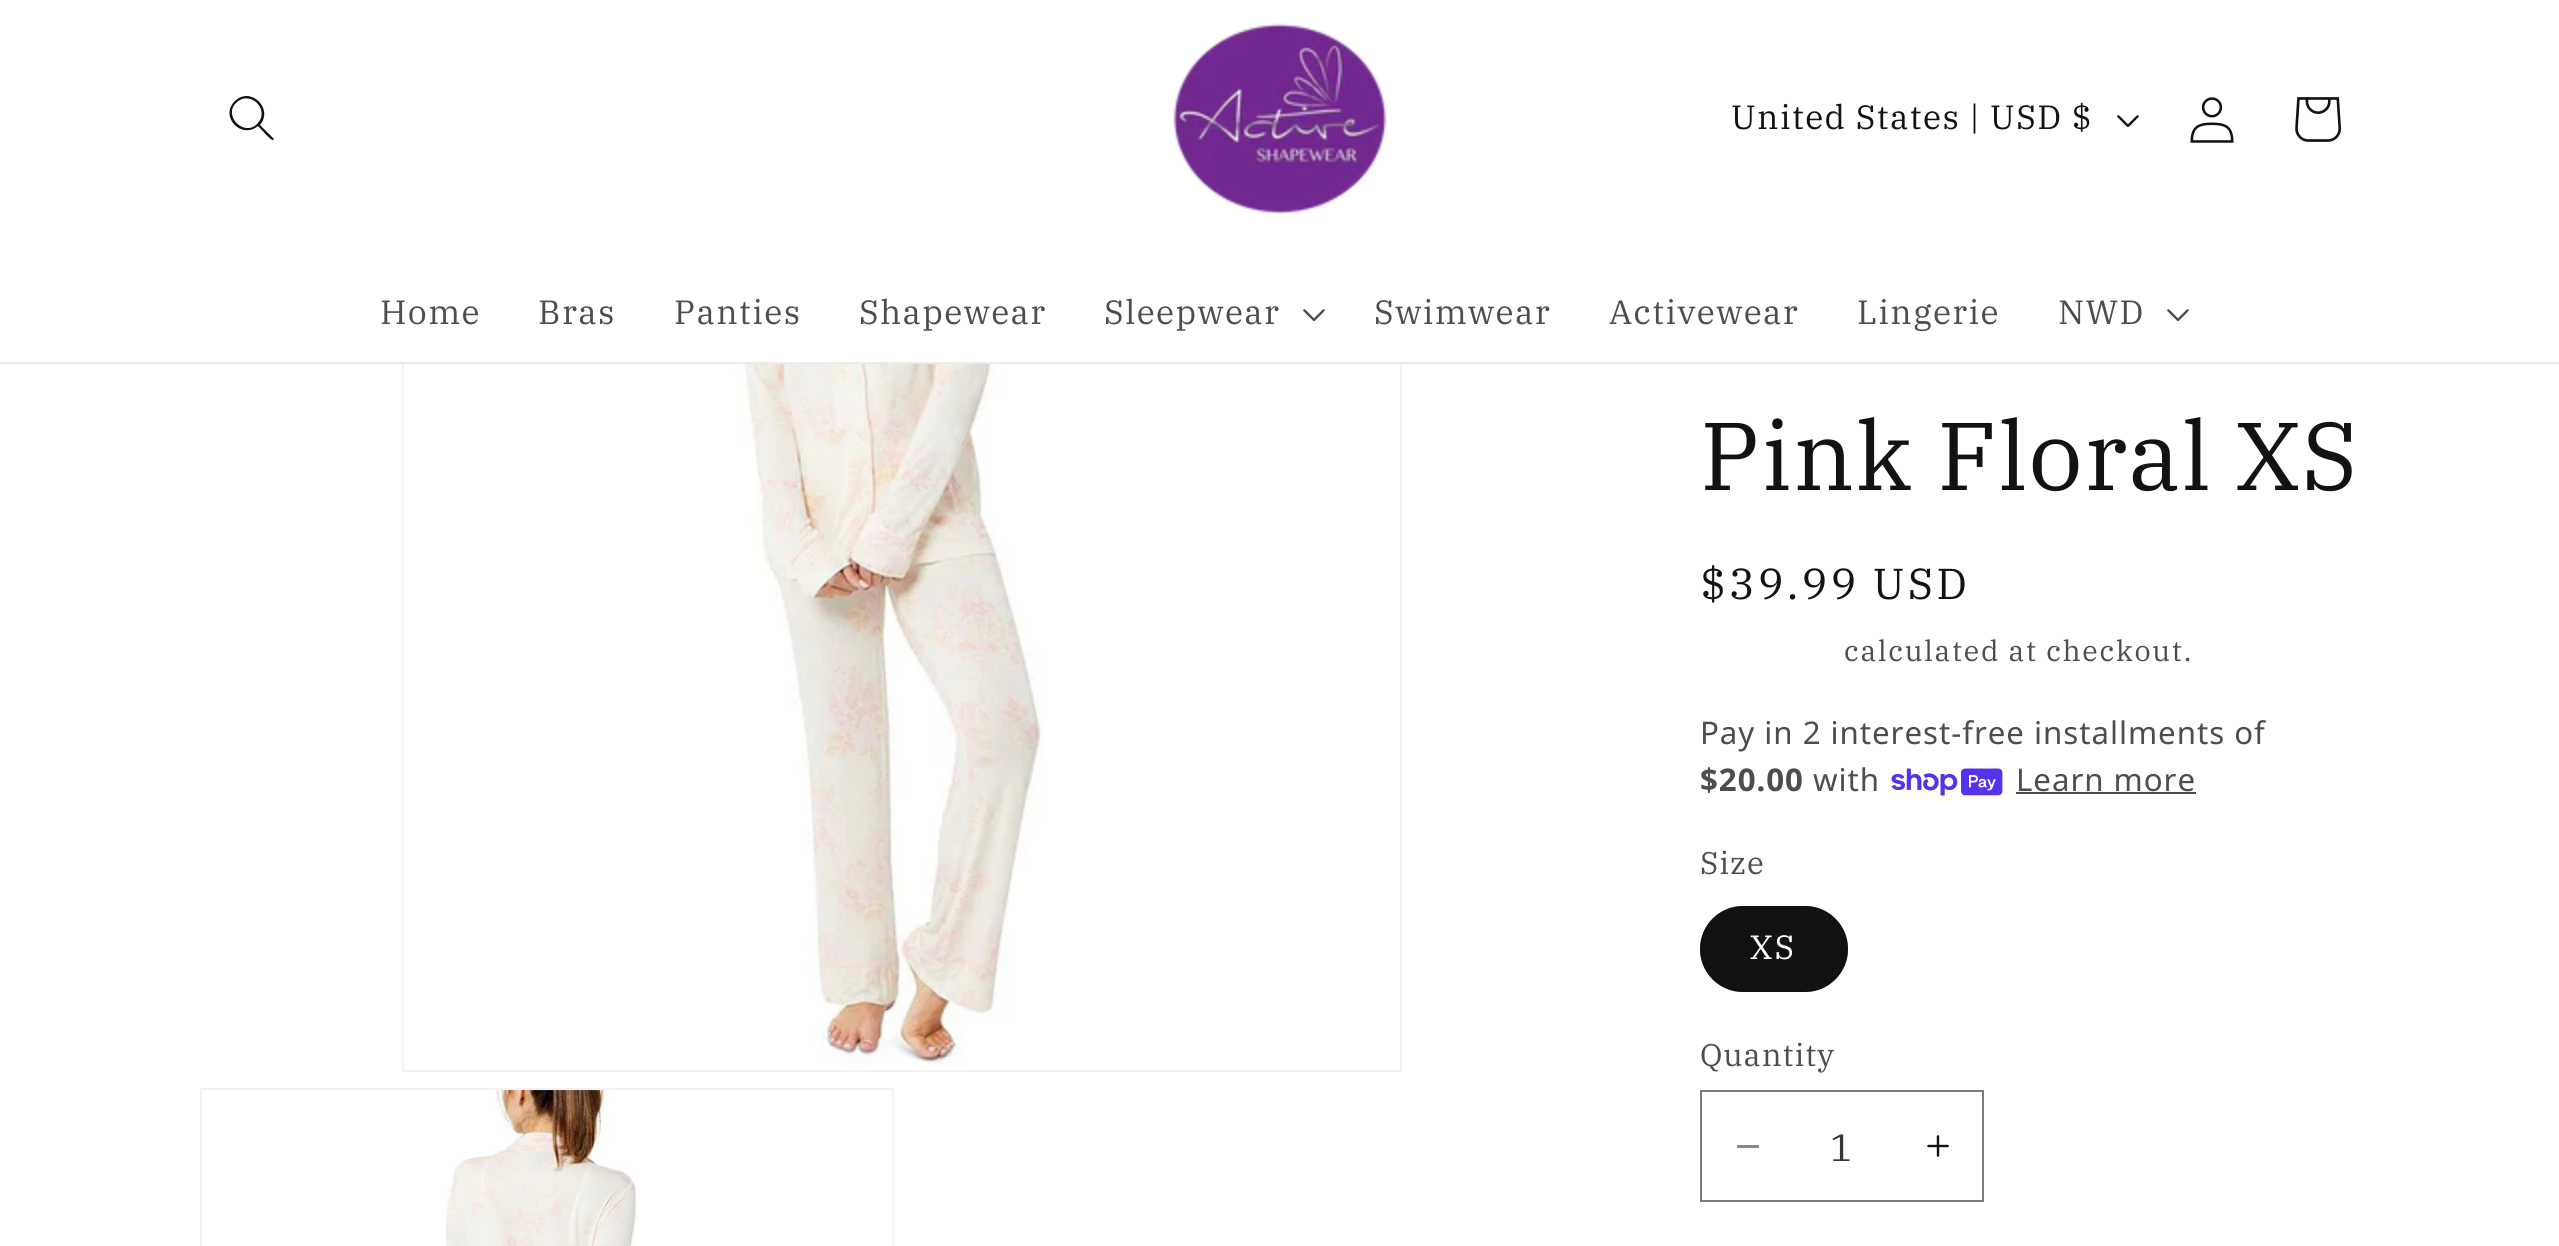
#include <cairo/cairo.h>
#include <math.h>
#include <stddef.h>

typedef struct { double x, y; const char *s; } line_t;
static cairo_t *cr;

static void rgb(unsigned color)
{
	cairo_set_source_rgb(cr, (color >> 16) / 255.0, (color >> 8 & 255) / 255.0, (color & 255) / 255.0);
}

static void tracked(double x, double y, const char *s, double letter, double word)
{
	cairo_move_to(cr, x, y);
	while (*s) {
		char ch[5] = {0};
		int n = 0;
		do ch[n++] = *s++; while ((*s & 0xC0) == 0x80);
		cairo_show_text(cr, ch);
		cairo_rel_move_to(cr, letter + word * (*ch == ' '), 0);
	}
}

static void rrect(double x, double y, double w, double h, double r)
{
	cairo_new_sub_path(cr);
	cairo_arc(cr, x + w - r, y + h - r, r, 0, M_PI / 2);
	cairo_arc(cr, x + r, y + h - r, r, M_PI / 2, M_PI);
	cairo_arc(cr, x + r, y + r, r, M_PI, 1.5 * M_PI);
	cairo_arc(cr, x + w - r, y + r, r, 1.5 * M_PI, 2 * M_PI);
	cairo_close_path(cr);
}

static void image(const char *path, double x, double y, double w, double h)
{
	cairo_surface_t *image = cairo_image_surface_create_from_png(path);
	cairo_save(cr);
	cairo_set_source_surface(cr, image, x, y);
	cairo_rectangle(cr, x, y, w, h);
	cairo_fill(cr);
	cairo_restore(cr);
	cairo_surface_destroy(image);
}

int main(void) {
	cairo_surface_t *surface = cairo_image_surface_create(CAIRO_FORMAT_RGB24, 2559, 1246);
	cr = cairo_create(surface);
	cairo_font_options_t *options = cairo_font_options_create();
	cairo_font_options_set_hint_metrics(options, CAIRO_HINT_METRICS_OFF);
	cairo_font_options_set_hint_style(options, CAIRO_HINT_STYLE_NONE);
	cairo_set_font_options(cr, options);
	cairo_set_miter_limit(cr, 4);
	rgb(0xffffff);
	cairo_paint(cr);
	cairo_rectangle(cr, 403, 73, 998, 998);
	rgb(0xf3f3f3);
	cairo_stroke(cr);
	rgb(0xffffff);
	cairo_rectangle(cr, 402, 72, 1000, 290);
	cairo_fill(cr);
	rgb(0xececec);
	cairo_rectangle(cr, 0, 362, 2559, 2);
	cairo_fill(cr);
	rgb(0x121212);
	cairo_set_fill_rule(cr, CAIRO_FILL_RULE_EVEN_ODD);
	cairo_new_path(cr);
	cairo_move_to(cr, 257, 124);
	cairo_curve_to(cr, 244, 137, 223, 116, 236, 103);
	cairo_curve_to(cr, 250, 89, 271, 110, 257, 124);
	cairo_close_path(cr);
	cairo_move_to(cr, 258, 126);
	cairo_curve_to(cr, 241, 140, 219, 116, 235, 101);
	cairo_curve_to(cr, 250, 86, 274, 108, 260, 125);
	cairo_line_to(cr, 274, 139);
	cairo_line_to(cr, 273, 140);
	cairo_curve_to(cr, 271, 141, 260, 128, 258, 126);
	cairo_close_path(cr);
	cairo_fill(cr);
	image("img/1.png", 1173, 23, 214, 192);
	image("img/2.png", 2117, 115, 22, 13);
	image("img/3.png", 2190, 97, 44, 46);
	image("img/4.png", 2295, 97, 46, 45);
	image("img/5.png", 1303, 309, 22, 13);
	image("img/5.png", 2167, 309, 22, 13);
	image("img/6.png", 730, 364, 314, 703);
	cairo_rectangle(cr, 201, 1089, 692, 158);
	rgb(0xf3f3f3);
	cairo_stroke(cr);
	image("img/7.png", 445, 1090, 194, 156);
	image("img/8.png", 1891, 768, 112, 28);
	rgb(0x4d4d4d);
	cairo_rectangle(cr, 2016, 792, 180, 2);
	cairo_fill(cr);
	rgb(0x121212);
	rrect(1700, 906, 148, 86, 43);
	cairo_fill(cr);
	rrect(1701, 907, 146, 84, 42);
	cairo_set_source_rgba(cr, 0.071, 0.071, 0.071, 0.55);
	cairo_stroke(cr);
	rgb(0x898989);
	cairo_rectangle(cr, 1737, 1145, 22, 3);
	cairo_fill(cr);
	image("img/9.png", 1927, 1135, 22, 22);
	cairo_rectangle(cr, 1701, 1091, 282, 110);
	rgb(0x7d7d7d);
	cairo_stroke(cr);
	cairo_select_font_face(cr, "IBM Plex Serif", CAIRO_FONT_SLANT_NORMAL, CAIRO_FONT_WEIGHT_NORMAL);
	cairo_set_font_size(cr, 33.6);
	rgb(0x121212);
	tracked(1731, 129, "United States | USD $", 1.4, 0);
	rgb(0x4d4d4d);
	{
		static const line_t items[] = {
			{380, 324, "Home"},
			{538, 324, "Bras"},
			{674, 324, "Panties"},
			{859, 324, "Shapewear"},
			{1104, 324, "Sleepwear"},
			{1374, 324, "Swimwear"},
			{1609, 324, "Activewear"},
			{1857, 324, "Lingerie"},
			{2058, 324, "NWD"},
		};
		for (size_t i = 0; i < sizeof items / sizeof *items; i++) {
			tracked(items[i].x, items[i].y, items[i].s, 1.4, 0);
		}
	}
	cairo_set_font_size(cr, 96);
	rgb(0x121212);
	tracked(1700, 490, "Pink Floral XS", 1.4, 0);
	cairo_set_font_size(cr, 43.25);
	tracked(1700, 599, "$39.99 USD", 3.1, 0);
	cairo_set_font_size(cr, 28.75);
	rgb(0x4d4d4d);
	tracked(1844, 661, "calculated at checkout.", 1.7, 0);
	cairo_select_font_face(cr, "Noto Sans", CAIRO_FONT_SLANT_NORMAL, CAIRO_FONT_WEIGHT_NORMAL);
	cairo_set_font_size(cr, 31.25);
	tracked(1700, 744, "Pay in 2 interest-free installments of", 0.95, 0);
	cairo_select_font_face(cr, "Noto Sans", CAIRO_FONT_SLANT_NORMAL, CAIRO_FONT_WEIGHT_BOLD);
	tracked(1700, 791, "$20.00", 0.95, 0);
	cairo_select_font_face(cr, "Noto Sans", CAIRO_FONT_SLANT_NORMAL, CAIRO_FONT_WEIGHT_NORMAL);
	tracked(1813, 791, "with", 0.95, 0);
	tracked(2016, 791, "Learn more", 0.95, 0);
	cairo_select_font_face(cr, "IBM Plex Serif", CAIRO_FONT_SLANT_NORMAL, CAIRO_FONT_WEIGHT_NORMAL);
	tracked(1700, 874, "Size", 0.95, 0);
	cairo_set_font_size(cr, 33.6);
	rgb(0xffffff);
	tracked(1750, 959, "XS", 2, 0);
	cairo_set_font_size(cr, 31.25);
	rgb(0x4d4d4d);
	tracked(1700, 1066, "Quantity", 0.95, 0);
	cairo_set_font_size(cr, 38);
	rgb(0x363636);
	cairo_move_to(cr, 1830, 1161);
	cairo_show_text(cr, "1");
	cairo_surface_write_to_png(surface, "page.png");
	cairo_font_options_destroy(options);
	cairo_destroy(cr);
	cairo_surface_destroy(surface);
	return 0;
}
